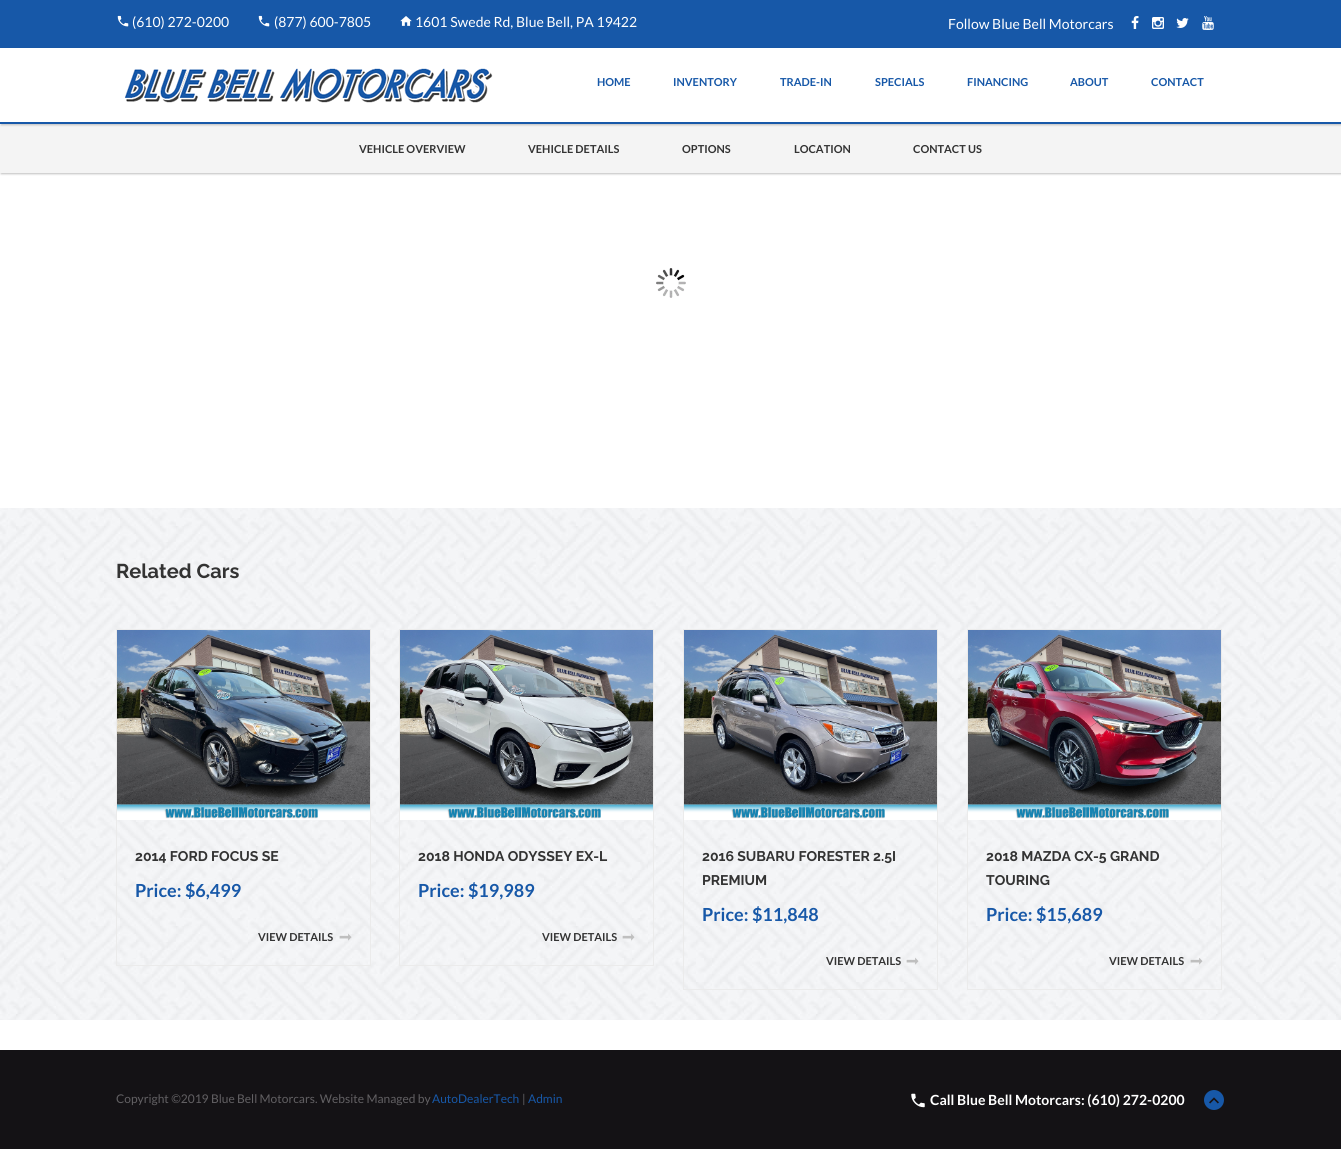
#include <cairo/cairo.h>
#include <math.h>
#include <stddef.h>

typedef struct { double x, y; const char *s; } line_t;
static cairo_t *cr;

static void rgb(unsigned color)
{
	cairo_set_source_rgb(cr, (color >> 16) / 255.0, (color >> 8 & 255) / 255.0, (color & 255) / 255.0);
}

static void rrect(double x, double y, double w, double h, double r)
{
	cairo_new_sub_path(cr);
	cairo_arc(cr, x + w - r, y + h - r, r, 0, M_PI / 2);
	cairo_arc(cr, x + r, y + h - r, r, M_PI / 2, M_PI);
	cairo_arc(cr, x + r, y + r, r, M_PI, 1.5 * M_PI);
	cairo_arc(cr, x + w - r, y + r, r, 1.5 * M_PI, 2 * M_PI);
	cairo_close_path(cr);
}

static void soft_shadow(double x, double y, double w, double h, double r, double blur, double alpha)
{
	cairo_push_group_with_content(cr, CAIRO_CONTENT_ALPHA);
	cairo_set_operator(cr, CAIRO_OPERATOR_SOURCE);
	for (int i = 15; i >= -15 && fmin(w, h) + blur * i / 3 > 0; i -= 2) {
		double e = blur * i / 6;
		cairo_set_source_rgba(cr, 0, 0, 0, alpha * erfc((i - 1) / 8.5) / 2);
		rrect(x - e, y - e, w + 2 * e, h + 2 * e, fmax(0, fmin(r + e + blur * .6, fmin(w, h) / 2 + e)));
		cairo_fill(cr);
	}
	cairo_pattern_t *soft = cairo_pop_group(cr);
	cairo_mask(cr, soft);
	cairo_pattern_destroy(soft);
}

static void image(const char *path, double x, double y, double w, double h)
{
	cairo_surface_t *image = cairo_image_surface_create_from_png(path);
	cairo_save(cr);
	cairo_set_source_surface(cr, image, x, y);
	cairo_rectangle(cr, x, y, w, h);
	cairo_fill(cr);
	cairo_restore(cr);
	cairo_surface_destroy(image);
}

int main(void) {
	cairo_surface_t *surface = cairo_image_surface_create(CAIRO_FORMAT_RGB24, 1341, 1149);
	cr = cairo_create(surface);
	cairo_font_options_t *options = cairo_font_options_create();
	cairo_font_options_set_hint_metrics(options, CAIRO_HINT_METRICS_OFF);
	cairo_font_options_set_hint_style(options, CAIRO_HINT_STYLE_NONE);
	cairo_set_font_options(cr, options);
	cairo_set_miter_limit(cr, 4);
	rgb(0xffffff);
	cairo_paint(cr);
	rgb(0x1758a8);
	cairo_rectangle(cr, 0, 0, 1341, 48);
	cairo_fill(cr);
	image("img/1.png", 117, 15, 12, 12);
	image("img/1.png", 258, 15, 12, 12);
	image("img/2.png", 400, 16, 12, 10);
	image("img/3.png", 1131, 16, 8, 13);
	image("img/4.png", 1152, 17, 12, 12);
	image("img/5.png", 1176, 18, 13, 10);
	image("img/6.png", 1202, 16, 12, 14);
	rgb(0x000000);
	soft_shadow(1, 126, 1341, 48, 0, 1, 0.25);
	rgb(0xf4f4f4);
	cairo_rectangle(cr, 0, 125, 1341, 48);
	cairo_fill(cr);
	rgb(0x000000);
	soft_shadow(1, 49, 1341, 76, 0, 1, 0.25);
	rgb(0xffffff);
	cairo_rectangle(cr, 0, 48, 1341, 74);
	cairo_fill(cr);
	rgb(0x1758a8);
	cairo_rectangle(cr, 0, 122, 1341, 2);
	cairo_fill(cr);
	image("img/7.png", 124, 68, 369, 35);
	image("img/8.png", 0, 508, 1341, 512);
	image("img/9.png", 656, 268, 30, 30);
	cairo_rectangle(cr, 116.5, 629.5, 254, 336);
	rgb(0xebebeb);
	cairo_set_line_width(cr, 1);
	cairo_stroke(cr);
	image("img/10.png", 117, 630, 253, 190);
	image("img/11.png", 339, 933, 13, 8);
	cairo_rectangle(cr, 399.5, 629.5, 254, 336);
	cairo_stroke(cr);
	image("img/12.png", 400, 630, 253, 190);
	image("img/13.png", 622, 933, 13, 8);
	cairo_rectangle(cr, 683.5, 629.5, 254, 360);
	cairo_stroke(cr);
	image("img/14.png", 684, 630, 253, 190);
	image("img/15.png", 906, 957, 13, 8);
	cairo_rectangle(cr, 967.5, 629.5, 254, 360);
	cairo_stroke(cr);
	image("img/16.png", 968, 630, 253, 190);
	image("img/17.png", 1190, 957, 13, 8);
	rgb(0x141215);
	cairo_rectangle(cr, 0, 1050, 1341, 99);
	cairo_fill(cr);
	image("img/18.png", 911, 1093, 14, 15);
	rgb(0x1758a8);
	cairo_arc(cr, 1214, 1100, 10, 0, 2 * M_PI);
	cairo_fill(cr);
	image("img/19.png", 1209, 1097, 10, 7);
	cairo_select_font_face(cr, "Lato", CAIRO_FONT_SLANT_NORMAL, CAIRO_FONT_WEIGHT_NORMAL);
	cairo_set_font_size(cr, 14);
	rgb(0xffffff);
	{
		static const line_t items[] = {
			{132, 27, "(610) 272-0200"},
			{274, 27, "(877) 600-7805"},
			{415, 27, "1601 Swede Rd, Blue Bell, PA 19422"},
			{948, 29, "Follow Blue Bell Motorcars"},
		};
		for (size_t i = 0; i < sizeof items / sizeof *items; i++) {
			cairo_move_to(cr, items[i].x, items[i].y);
			cairo_show_text(cr, items[i].s);
		}
	}
	cairo_select_font_face(cr, "Lato", CAIRO_FONT_SLANT_NORMAL, CAIRO_FONT_WEIGHT_BOLD);
	cairo_set_font_size(cr, 11);
	rgb(0x1758a8);
	{
		static const line_t items[] = {
			{597, 86, "HOME"},
			{673, 86, "INVENTORY"},
			{780, 86, "TRADE-IN"},
			{875, 86, "SPECIALS"},
			{967, 86, "FINANCING"},
			{1070, 86, "ABOUT"},
			{1151, 86, "CONTACT"},
		};
		for (size_t i = 0; i < sizeof items / sizeof *items; i++) {
			cairo_move_to(cr, items[i].x, items[i].y);
			cairo_show_text(cr, items[i].s);
		}
	}
	rgb(0x333333);
	{
		static const line_t items[] = {
			{359, 153, "VEHICLE OVERVIEW"},
			{528, 153, "VEHICLE DETAILS"},
			{682, 153, "OPTIONS"},
			{794, 153, "LOCATION"},
			{913, 153, "CONTACT US"},
		};
		for (size_t i = 0; i < sizeof items / sizeof *items; i++) {
			cairo_move_to(cr, items[i].x, items[i].y);
			cairo_show_text(cr, items[i].s);
		}
	}
	cairo_select_font_face(cr, "Raleway", CAIRO_FONT_SLANT_NORMAL, CAIRO_FONT_WEIGHT_BOLD);
	cairo_set_font_size(cr, 20);
	cairo_move_to(cr, 116, 578);
	cairo_show_text(cr, "Related Cars");
	cairo_set_font_size(cr, 14);
	cairo_move_to(cr, 135, 861);
	cairo_show_text(cr, "2014 FORD FOCUS SE");
	cairo_select_font_face(cr, "Lato", CAIRO_FONT_SLANT_NORMAL, CAIRO_FONT_WEIGHT_BOLD);
	cairo_set_font_size(cr, 18);
	rgb(0x1758a8);
	cairo_move_to(cr, 135, 897);
	cairo_show_text(cr, "Price: $6,499");
	cairo_set_font_size(cr, 11);
	rgb(0x333333);
	cairo_move_to(cr, 258, 941);
	cairo_show_text(cr, "VIEW DETAILS");
	cairo_select_font_face(cr, "Raleway", CAIRO_FONT_SLANT_NORMAL, CAIRO_FONT_WEIGHT_BOLD);
	cairo_set_font_size(cr, 14);
	cairo_move_to(cr, 418, 861);
	cairo_show_text(cr, "2018 HONDA ODYSSEY EX-L");
	cairo_select_font_face(cr, "Lato", CAIRO_FONT_SLANT_NORMAL, CAIRO_FONT_WEIGHT_BOLD);
	cairo_set_font_size(cr, 18);
	rgb(0x1758a8);
	cairo_move_to(cr, 418, 897);
	cairo_show_text(cr, "Price: $19,989");
	cairo_set_font_size(cr, 11);
	rgb(0x333333);
	cairo_move_to(cr, 542, 941);
	cairo_show_text(cr, "VIEW DETAILS");
	cairo_select_font_face(cr, "Raleway", CAIRO_FONT_SLANT_NORMAL, CAIRO_FONT_WEIGHT_BOLD);
	cairo_set_font_size(cr, 14);
	cairo_move_to(cr, 702, 861);
	cairo_show_text(cr, "2016 SUBARU FORESTER 2.5I");
	cairo_move_to(cr, 702, 885);
	cairo_show_text(cr, "PREMIUM");
	cairo_select_font_face(cr, "Lato", CAIRO_FONT_SLANT_NORMAL, CAIRO_FONT_WEIGHT_BOLD);
	cairo_set_font_size(cr, 18);
	rgb(0x1758a8);
	cairo_move_to(cr, 702, 921);
	cairo_show_text(cr, "Price: $11,848");
	cairo_set_font_size(cr, 11);
	rgb(0x333333);
	cairo_move_to(cr, 826, 965);
	cairo_show_text(cr, "VIEW DETAILS");
	cairo_select_font_face(cr, "Raleway", CAIRO_FONT_SLANT_NORMAL, CAIRO_FONT_WEIGHT_BOLD);
	cairo_set_font_size(cr, 14);
	cairo_move_to(cr, 986, 861);
	cairo_show_text(cr, "2018 MAZDA CX-5 GRAND");
	cairo_move_to(cr, 986, 885);
	cairo_show_text(cr, "TOURING");
	cairo_select_font_face(cr, "Lato", CAIRO_FONT_SLANT_NORMAL, CAIRO_FONT_WEIGHT_BOLD);
	cairo_set_font_size(cr, 18);
	rgb(0x1758a8);
	cairo_move_to(cr, 986, 921);
	cairo_show_text(cr, "Price: $15,689");
	cairo_set_font_size(cr, 11);
	rgb(0x333333);
	cairo_move_to(cr, 1109, 965);
	cairo_show_text(cr, "VIEW DETAILS");
	cairo_select_font_face(cr, "Lato", CAIRO_FONT_SLANT_NORMAL, CAIRO_FONT_WEIGHT_NORMAL);
	cairo_set_font_size(cr, 12);
	rgb(0x626063);
	cairo_move_to(cr, 116, 1103);
	cairo_show_text(cr, "Copyright ©2019 Blue Bell Motorcars. Website Managed by");
	rgb(0x1758a8);
	cairo_move_to(cr, 432, 1103);
	cairo_show_text(cr, "AutoDealerTech");
	rgb(0x626063);
	cairo_move_to(cr, 522, 1103);
	cairo_show_text(cr, "|");
	rgb(0x1758a8);
	cairo_move_to(cr, 528, 1103);
	cairo_show_text(cr, "Admin");
	cairo_select_font_face(cr, "Lato", CAIRO_FONT_SLANT_NORMAL, CAIRO_FONT_WEIGHT_BOLD);
	cairo_set_font_size(cr, 14);
	rgb(0xffffff);
	cairo_move_to(cr, 930, 1105);
	cairo_show_text(cr, "Call Blue Bell Motorcars: (610) 272-0200");
	cairo_surface_write_to_png(surface, "page.png");
	cairo_font_options_destroy(options);
	cairo_destroy(cr);
	cairo_surface_destroy(surface);
	return 0;
}
